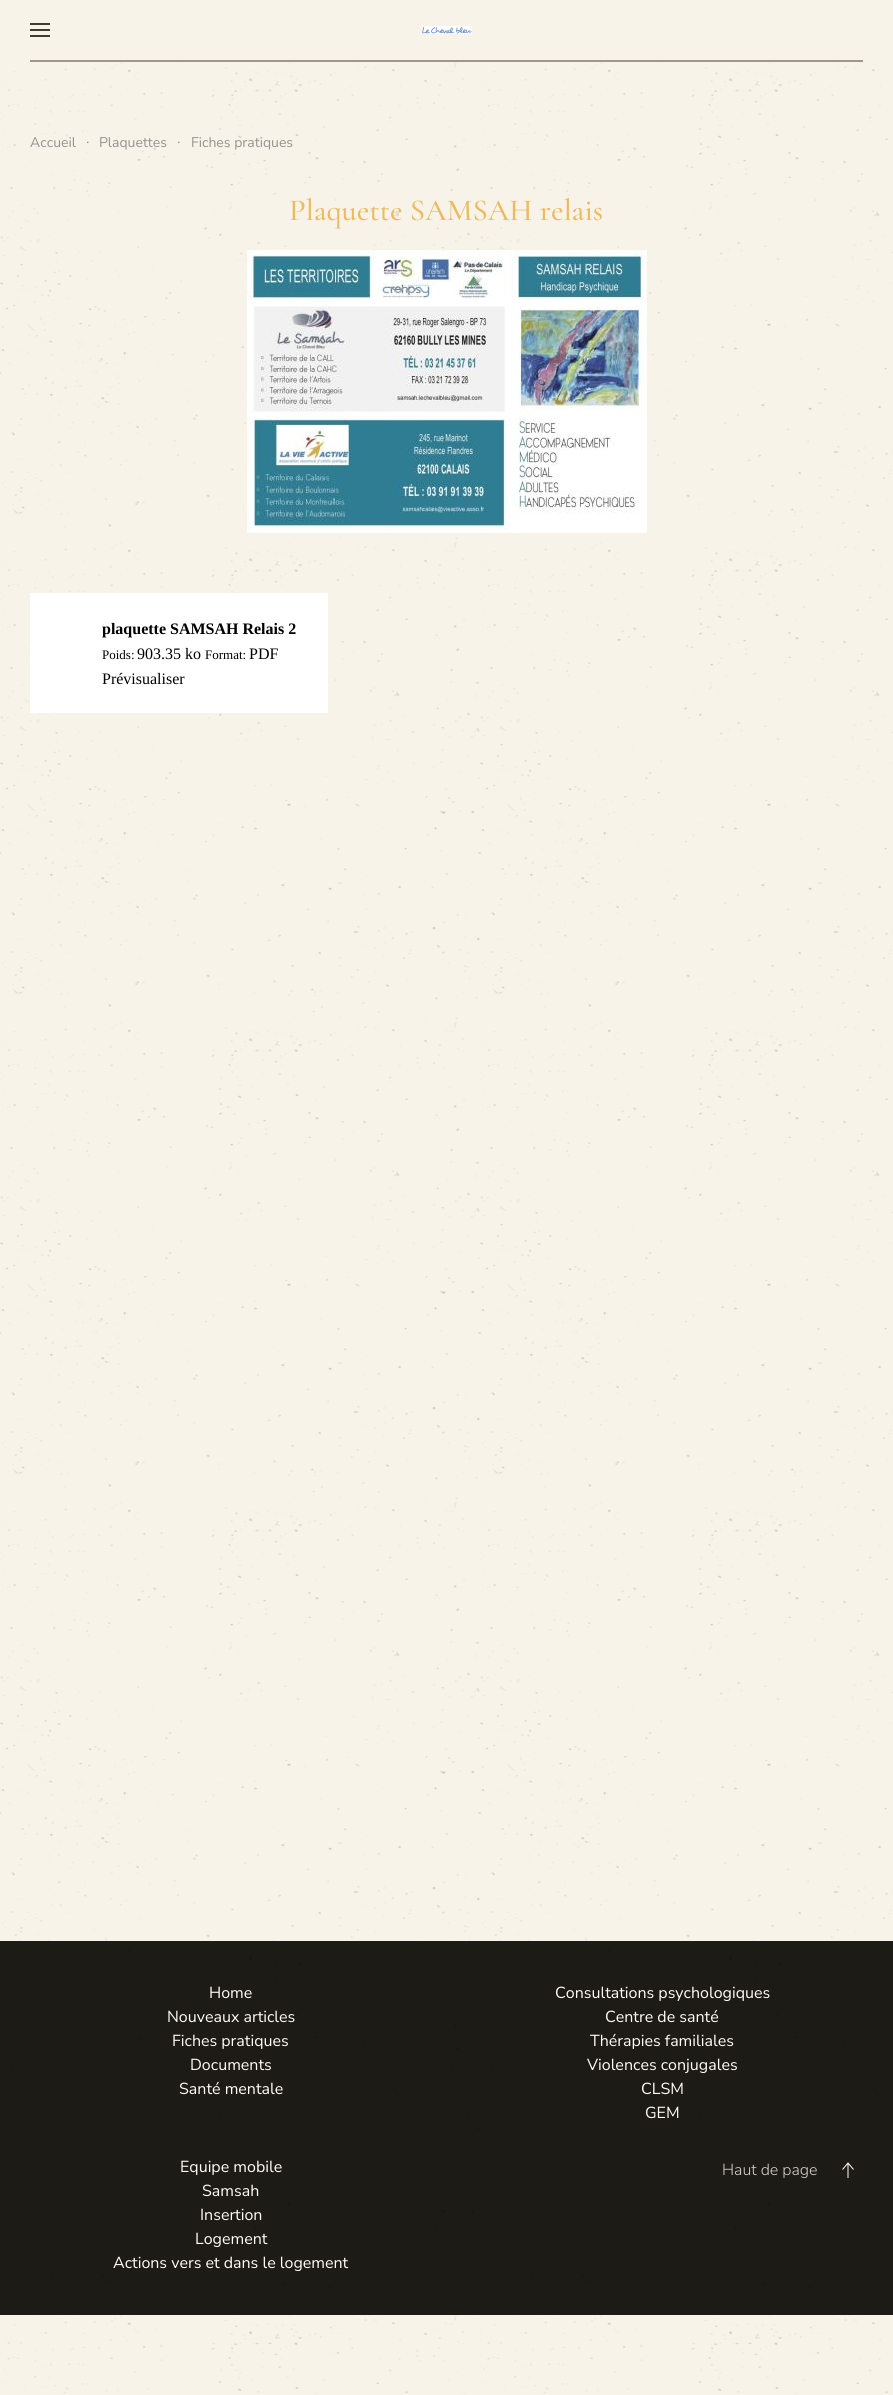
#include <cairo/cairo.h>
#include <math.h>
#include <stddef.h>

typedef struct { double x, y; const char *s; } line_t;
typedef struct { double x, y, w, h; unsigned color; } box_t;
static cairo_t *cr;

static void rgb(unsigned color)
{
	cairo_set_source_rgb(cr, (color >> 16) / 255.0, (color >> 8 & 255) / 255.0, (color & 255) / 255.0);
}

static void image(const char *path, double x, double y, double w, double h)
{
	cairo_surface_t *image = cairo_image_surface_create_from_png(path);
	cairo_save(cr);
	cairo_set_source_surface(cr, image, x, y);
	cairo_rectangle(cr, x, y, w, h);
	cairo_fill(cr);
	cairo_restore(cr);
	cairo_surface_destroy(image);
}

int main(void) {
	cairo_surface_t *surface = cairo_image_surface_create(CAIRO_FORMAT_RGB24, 893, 2395);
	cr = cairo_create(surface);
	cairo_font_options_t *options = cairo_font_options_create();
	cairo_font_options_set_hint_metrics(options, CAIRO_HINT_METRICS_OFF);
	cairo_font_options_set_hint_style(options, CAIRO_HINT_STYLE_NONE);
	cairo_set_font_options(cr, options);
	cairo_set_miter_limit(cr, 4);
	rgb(0xf7f3e9);
	cairo_paint(cr);
	{
		static const box_t items[] = {
			{30, 60, 833, 2, 0xa0968d},
			{30, 23, 20, 2, 0x403c32},
			{30, 29, 20, 2, 0x403c32},
			{30, 35, 20, 2, 0x403c32},
		};
		for (size_t i = 0; i < sizeof items / sizeof *items; i++) {
			rgb(items[i].color);
			cairo_rectangle(cr, items[i].x, items[i].y, items[i].w, items[i].h);
			cairo_fill(cr);
		}
	}
	image("img/1.png", 422, 26, 50, 8);
	image("img/2.png", 0, 62, 893, 1879);
	image("img/3.png", 247, 250, 400, 283);
	rgb(0xffffff);
	cairo_rectangle(cr, 30, 593, 298, 120);
	cairo_fill(cr);
	rgb(0x1d1b15);
	cairo_rectangle(cr, 0, 1941, 893, 374);
	cairo_fill(cr);
	image("img/4.png", 1, 1949, 879, 339);
	cairo_new_path(cr);
	cairo_move_to(cr, 842.5, 2169.5);
	cairo_line_to(cr, 848, 2163);
	cairo_line_to(cr, 853.5, 2169.5);
	cairo_move_to(cr, 848, 2178);
	cairo_line_to(cr, 848, 2164);
	rgb(0xfffcf5);
	cairo_set_line_width(cr, 1);
	cairo_stroke(cr);
	image("img/5.png", 4, 2315, 884, 79);
	cairo_select_font_face(cr, "Nunito Sans ExtraLight", CAIRO_FONT_SLANT_NORMAL, CAIRO_FONT_WEIGHT_NORMAL);
	cairo_set_font_size(cr, 14);
	rgb(0x98928e);
	cairo_move_to(cr, 30, 147);
	cairo_show_text(cr, "Accueil");
	cairo_select_font_face(cr, "Liberation Serif", CAIRO_FONT_SLANT_NORMAL, CAIRO_FONT_WEIGHT_NORMAL);
	cairo_move_to(cr, 86, 147);
	cairo_show_text(cr, "∙");
	cairo_select_font_face(cr, "Nunito Sans ExtraLight", CAIRO_FONT_SLANT_NORMAL, CAIRO_FONT_WEIGHT_NORMAL);
	cairo_move_to(cr, 99, 147);
	cairo_show_text(cr, "Plaquettes");
	cairo_select_font_face(cr, "Liberation Serif", CAIRO_FONT_SLANT_NORMAL, CAIRO_FONT_WEIGHT_NORMAL);
	cairo_move_to(cr, 177, 147);
	cairo_show_text(cr, "∙");
	cairo_select_font_face(cr, "Nunito Sans ExtraLight", CAIRO_FONT_SLANT_NORMAL, CAIRO_FONT_WEIGHT_NORMAL);
	cairo_move_to(cr, 191, 147);
	cairo_show_text(cr, "Fiches pratiques");
	cairo_select_font_face(cr, "Cormorant Garamond Light", CAIRO_FONT_SLANT_NORMAL, CAIRO_FONT_WEIGHT_NORMAL);
	cairo_set_font_size(cr, 30.6);
	rgb(0xedbb5f);
	cairo_move_to(cr, 289, 220);
	cairo_show_text(cr, "Plaquette SAMSAH relais");
	cairo_select_font_face(cr, "Liberation Serif", CAIRO_FONT_SLANT_NORMAL, CAIRO_FONT_WEIGHT_BOLD);
	cairo_set_font_size(cr, 16);
	rgb(0x000000);
	cairo_move_to(cr, 102, 634);
	cairo_show_text(cr, "plaquette SAMSAH Relais 2");
	cairo_select_font_face(cr, "Liberation Serif", CAIRO_FONT_SLANT_NORMAL, CAIRO_FONT_WEIGHT_NORMAL);
	cairo_set_font_size(cr, 13);
	cairo_move_to(cr, 102, 659);
	cairo_show_text(cr, "Poids:");
	cairo_set_font_size(cr, 16);
	cairo_move_to(cr, 137, 659);
	cairo_show_text(cr, "903.35 ko");
	cairo_set_font_size(cr, 13);
	cairo_move_to(cr, 205, 659);
	cairo_show_text(cr, "Format:");
	cairo_set_font_size(cr, 16);
	cairo_move_to(cr, 249, 659);
	cairo_show_text(cr, "PDF");
	cairo_move_to(cr, 102, 684);
	cairo_show_text(cr, "Prévisualiser");
	cairo_select_font_face(cr, "Nunito Sans ExtraLight", CAIRO_FONT_SLANT_NORMAL, CAIRO_FONT_WEIGHT_NORMAL);
	rgb(0xfffcf5);
	{
		static const line_t items[] = {
			{209, 1998, "Home"},
			{167, 2022, "Nouveaux articles"},
			{172, 2046, "Fiches pratiques"},
			{190, 2070, "Documents"},
			{179, 2094, "Santé mentale"},
			{555, 1998, "Consultations psychologiques"},
			{605, 2022, "Centre de santé"},
			{590, 2046, "Thérapies familiales"},
			{587, 2070, "Violences conjugales"},
			{641, 2094, "CLSM"},
			{645, 2118, "GEM"},
			{180, 2172, "Equipe mobile"},
			{202, 2196, "Samsah"},
			{200, 2220, "Insertion"},
			{195, 2244, "Logement"},
			{113, 2268, "Actions vers et dans le logement"},
		};
		for (size_t i = 0; i < sizeof items / sizeof *items; i++) {
			cairo_move_to(cr, items[i].x, items[i].y);
			cairo_show_text(cr, items[i].s);
		}
	}
	cairo_select_font_face(cr, "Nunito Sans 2 ExtraLight", CAIRO_FONT_SLANT_NORMAL, CAIRO_FONT_WEIGHT_NORMAL);
	rgb(0xd2cfc8);
	cairo_move_to(cr, 722, 2175);
	cairo_show_text(cr, "Haut de page");
	cairo_surface_write_to_png(surface, "page.png");
	cairo_font_options_destroy(options);
	cairo_destroy(cr);
	cairo_surface_destroy(surface);
	return 0;
}
